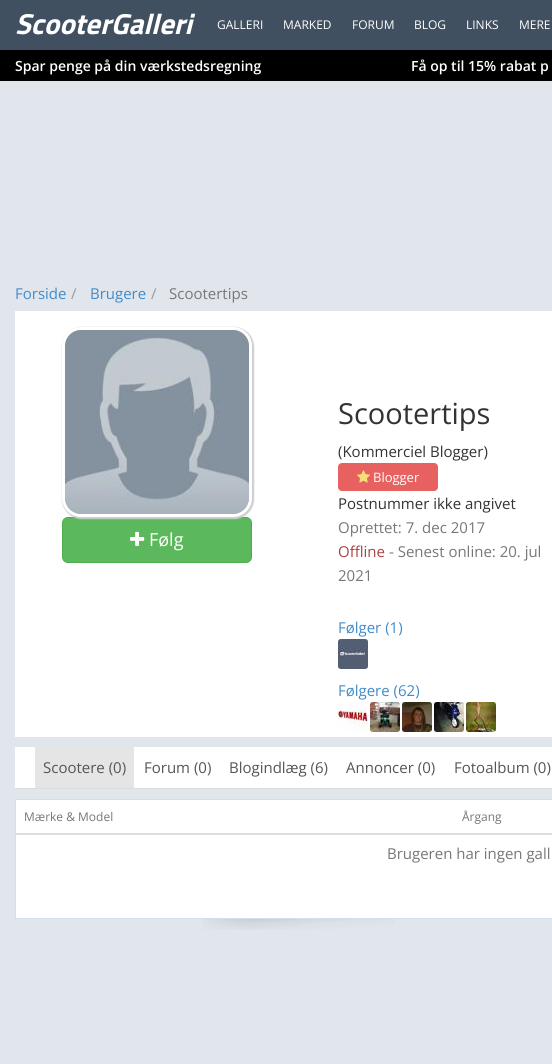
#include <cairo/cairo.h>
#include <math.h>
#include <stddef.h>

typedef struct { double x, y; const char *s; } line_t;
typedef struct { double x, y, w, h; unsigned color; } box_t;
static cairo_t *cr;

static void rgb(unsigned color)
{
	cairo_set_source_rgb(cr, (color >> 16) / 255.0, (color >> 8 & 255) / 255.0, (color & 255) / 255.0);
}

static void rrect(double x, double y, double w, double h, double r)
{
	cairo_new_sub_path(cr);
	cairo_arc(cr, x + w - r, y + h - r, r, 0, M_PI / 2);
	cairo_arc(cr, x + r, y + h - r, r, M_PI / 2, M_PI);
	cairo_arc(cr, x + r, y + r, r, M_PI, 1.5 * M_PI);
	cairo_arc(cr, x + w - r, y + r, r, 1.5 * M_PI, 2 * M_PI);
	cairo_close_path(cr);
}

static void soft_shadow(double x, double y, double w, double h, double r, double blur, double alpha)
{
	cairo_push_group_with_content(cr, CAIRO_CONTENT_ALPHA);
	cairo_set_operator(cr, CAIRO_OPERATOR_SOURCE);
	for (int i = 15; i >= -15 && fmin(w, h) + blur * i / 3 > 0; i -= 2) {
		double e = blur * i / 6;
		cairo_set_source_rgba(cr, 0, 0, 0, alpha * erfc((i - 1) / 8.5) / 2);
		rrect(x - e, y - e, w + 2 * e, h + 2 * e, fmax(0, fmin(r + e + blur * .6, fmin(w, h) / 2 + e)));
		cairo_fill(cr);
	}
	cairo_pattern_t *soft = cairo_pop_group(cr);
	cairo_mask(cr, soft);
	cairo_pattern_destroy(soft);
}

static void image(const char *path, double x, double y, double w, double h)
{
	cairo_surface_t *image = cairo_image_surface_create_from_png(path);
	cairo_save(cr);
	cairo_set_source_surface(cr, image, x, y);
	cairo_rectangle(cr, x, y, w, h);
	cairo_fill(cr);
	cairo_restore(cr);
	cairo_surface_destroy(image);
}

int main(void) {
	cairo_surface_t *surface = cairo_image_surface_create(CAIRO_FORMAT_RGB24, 552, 1064);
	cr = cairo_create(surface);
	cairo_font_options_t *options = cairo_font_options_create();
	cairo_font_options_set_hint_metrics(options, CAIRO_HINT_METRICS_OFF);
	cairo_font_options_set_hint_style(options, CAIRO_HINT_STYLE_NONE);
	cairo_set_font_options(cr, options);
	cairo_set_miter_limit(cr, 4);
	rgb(0xe1e6ed);
	cairo_paint(cr);
	{
		static const box_t items[] = {
			{0, 0, 552, 50, 0x415060},
			{0, 50, 552, 31, 0x000000},
			{15, 311, 537, 426, 0xffffff},
		};
		for (size_t i = 0; i < sizeof items / sizeof *items; i++) {
			rgb(items[i].color);
			cairo_rectangle(cr, items[i].x, items[i].y, items[i].w, items[i].h);
			cairo_fill(cr);
		}
	}
	rgb(0x5cb85c);
	rrect(62.5, 517.5, 189, 45, 5.5);
	cairo_fill_preserve(cr);
	rgb(0x4cae4c);
	cairo_set_line_width(cr, 1);
	cairo_stroke(cr);
	rgb(0xcecece);
	soft_shadow(62, 327, 192, 192, 20, 0.5, 1);
	rrect(63.5, 328.5, 187, 187, 17.5);
	rgb(0xffffff);
	cairo_set_line_width(cr, 3);
	cairo_stroke(cr);
	image("img/1.png", 65, 330, 184, 184);
	image("img/2.png", 130, 531, 15, 15);
	rgb(0xe66160);
	rrect(338, 463, 100, 28, 4);
	cairo_fill(cr);
	image("img/3.png", 357, 470, 13, 13);
	image("img/4.png", 338, 639, 30, 30);
	image("img/5.png", 338, 702, 30, 30);
	image("img/6.png", 370, 702, 30, 30);
	image("img/7.png", 402, 702, 30, 30);
	image("img/8.png", 434, 702, 30, 30);
	image("img/9.png", 466, 702, 30, 30);
	{
		static const box_t items[] = {
			{15, 747, 537, 41, 0xffffff},
			{15, 788, 537, 1, 0xdddddd},
			{35, 747, 99, 41, 0xe5e5e5},
		};
		for (size_t i = 0; i < sizeof items / sizeof *items; i++) {
			rgb(items[i].color);
			cairo_rectangle(cr, items[i].x, items[i].y, items[i].w, items[i].h);
			cairo_fill(cr);
		}
	}
	image("img/10.png", 203, 919, 192, 11);
	rgb(0xffffff);
	cairo_rectangle(cr, 15.5, 799.5, 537, 119);
	cairo_fill_preserve(cr);
	rgb(0xd3e0e9);
	cairo_set_line_width(cr, 1);
	cairo_stroke(cr);
	rgb(0xdddddd);
	cairo_rectangle(cr, 15, 833, 537, 2);
	cairo_fill(cr);
	cairo_select_font_face(cr, "Titillium Web", CAIRO_FONT_SLANT_ITALIC, CAIRO_FONT_WEIGHT_BOLD);
	cairo_set_font_size(cr, 29);
	rgb(0xffffff);
	cairo_move_to(cr, 15, 34);
	cairo_show_text(cr, "ScooterGalleri");
	cairo_select_font_face(cr, "Open Sans", CAIRO_FONT_SLANT_NORMAL, CAIRO_FONT_WEIGHT_NORMAL);
	cairo_set_font_size(cr, 12);
	{
		static const line_t items[] = {
			{217, 29, "GALLERI"},
			{283, 29, "MARKED"},
			{352, 29, "FORUM"},
			{414, 29, "BLOG"},
			{466, 29, "LINKS"},
			{519, 29, "MERE"},
		};
		for (size_t i = 0; i < sizeof items / sizeof *items; i++) {
			cairo_move_to(cr, items[i].x, items[i].y);
			cairo_show_text(cr, items[i].s);
		}
	}
	cairo_select_font_face(cr, "Open Sans SemiBold", CAIRO_FONT_SLANT_NORMAL, CAIRO_FONT_WEIGHT_NORMAL);
	cairo_set_font_size(cr, 14);
	cairo_move_to(cr, 15, 71);
	cairo_show_text(cr, "Spar penge på din værkstedsregning");
	cairo_move_to(cr, 411, 71);
	cairo_show_text(cr, "Få op til 15% rabat p");
	cairo_select_font_face(cr, "Open Sans", CAIRO_FONT_SLANT_NORMAL, CAIRO_FONT_WEIGHT_NORMAL);
	cairo_set_font_size(cr, 15);
	rgb(0x428bca);
	cairo_move_to(cr, 15, 299);
	cairo_show_text(cr, "Forside");
	rgb(0x999999);
	cairo_move_to(cr, 71, 299);
	cairo_show_text(cr, "/");
	rgb(0x428bca);
	cairo_move_to(cr, 90, 299);
	cairo_show_text(cr, "Brugere");
	rgb(0x999999);
	cairo_move_to(cr, 151, 299);
	cairo_show_text(cr, "/");
	rgb(0x777777);
	cairo_move_to(cr, 169, 299);
	cairo_show_text(cr, "Scootertips");
	cairo_set_font_size(cr, 18);
	rgb(0xffffff);
	cairo_move_to(cr, 149, 546);
	cairo_show_text(cr, "Følg");
	cairo_set_font_size(cr, 29);
	rgb(0x333333);
	cairo_move_to(cr, 338, 424);
	cairo_show_text(cr, "Scootertips");
	cairo_set_font_size(cr, 15);
	cairo_move_to(cr, 338, 457);
	cairo_show_text(cr, "(Kommerciel Blogger)");
	cairo_set_font_size(cr, 13);
	rgb(0xffffff);
	cairo_move_to(cr, 373, 482);
	cairo_show_text(cr, "Blogger");
	cairo_set_font_size(cr, 15);
	rgb(0x333333);
	cairo_move_to(cr, 338, 509);
	cairo_show_text(cr, "Postnummer ikke angivet");
	rgb(0x777777);
	cairo_move_to(cr, 338, 533);
	cairo_show_text(cr, "Oprettet: 7. dec 2017");
	rgb(0xa94442);
	cairo_move_to(cr, 338, 557);
	cairo_show_text(cr, "Offline");
	rgb(0x777777);
	cairo_move_to(cr, 389, 557);
	cairo_show_text(cr, "- Senest online: 20. jul");
	cairo_move_to(cr, 338, 581);
	cairo_show_text(cr, "2021");
	rgb(0x428bca);
	cairo_move_to(cr, 338, 633);
	cairo_show_text(cr, "Følger (1)");
	cairo_move_to(cr, 338, 696);
	cairo_show_text(cr, "Følgere (62)");
	rgb(0x555555);
	{
		static const line_t items[] = {
			{43, 773, "Scootere (0)"},
			{144, 773, "Forum (0)"},
			{229, 773, "Blogindlæg (6)"},
			{346, 773, "Annoncer (0)"},
			{454, 773, "Fotoalbum (0)"},
		};
		for (size_t i = 0; i < sizeof items / sizeof *items; i++) {
			cairo_move_to(cr, items[i].x, items[i].y);
			cairo_show_text(cr, items[i].s);
		}
	}
	cairo_set_font_size(cr, 12);
	rgb(0x777777);
	cairo_move_to(cr, 24, 821);
	cairo_show_text(cr, "Mærke & Model");
	cairo_move_to(cr, 462, 821);
	cairo_show_text(cr, "Årgang");
	cairo_set_font_size(cr, 15);
	cairo_move_to(cr, 387, 859);
	cairo_show_text(cr, "Brugeren har ingen gall");
	cairo_surface_write_to_png(surface, "page.png");
	cairo_font_options_destroy(options);
	cairo_destroy(cr);
	cairo_surface_destroy(surface);
	return 0;
}
